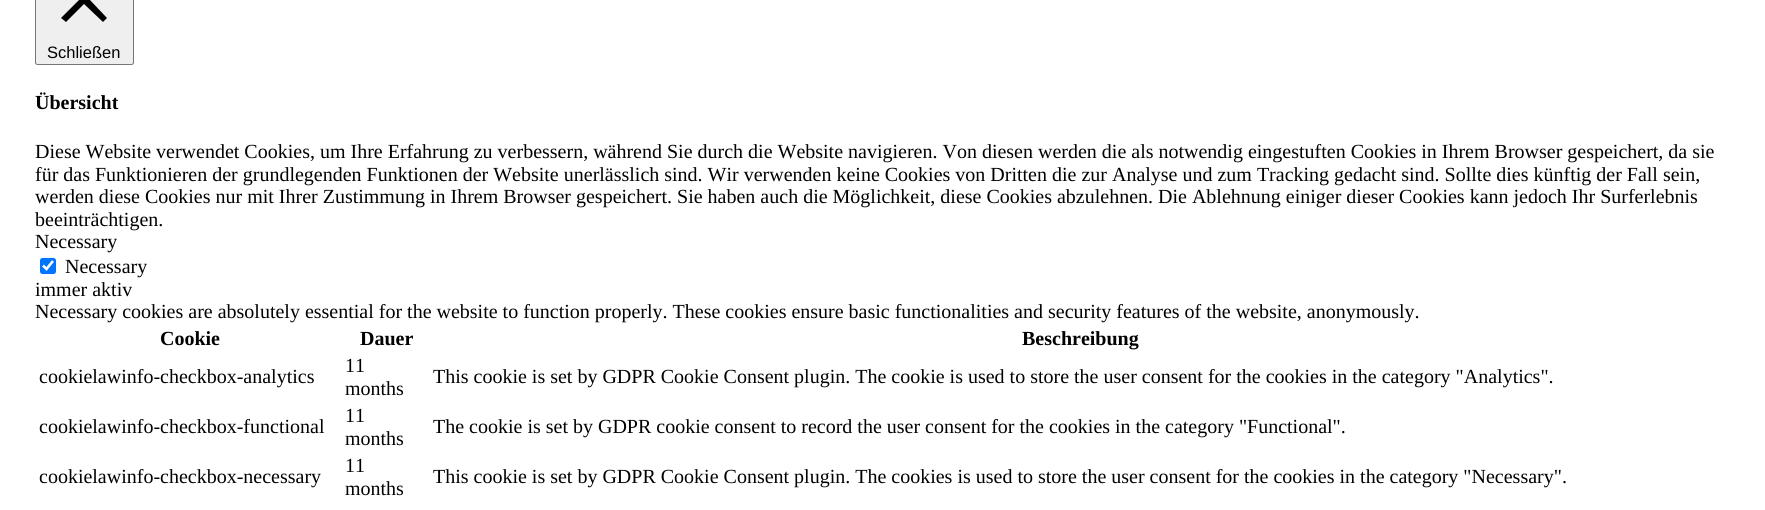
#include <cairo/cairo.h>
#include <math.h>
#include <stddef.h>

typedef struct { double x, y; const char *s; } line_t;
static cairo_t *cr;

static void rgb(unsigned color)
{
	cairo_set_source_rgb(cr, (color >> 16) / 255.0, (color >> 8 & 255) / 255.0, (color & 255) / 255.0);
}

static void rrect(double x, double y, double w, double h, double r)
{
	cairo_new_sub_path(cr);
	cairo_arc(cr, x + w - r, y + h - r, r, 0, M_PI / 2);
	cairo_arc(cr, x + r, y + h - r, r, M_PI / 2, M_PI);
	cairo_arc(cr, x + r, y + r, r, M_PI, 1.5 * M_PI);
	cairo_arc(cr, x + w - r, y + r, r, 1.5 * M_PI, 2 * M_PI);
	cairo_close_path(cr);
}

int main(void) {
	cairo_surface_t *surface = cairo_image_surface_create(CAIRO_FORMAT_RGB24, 1765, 510);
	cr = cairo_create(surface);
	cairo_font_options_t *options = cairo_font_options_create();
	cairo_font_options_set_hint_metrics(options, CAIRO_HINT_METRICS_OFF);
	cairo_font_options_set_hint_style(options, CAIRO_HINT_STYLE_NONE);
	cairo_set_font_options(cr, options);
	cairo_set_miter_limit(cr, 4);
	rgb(0xffffff);
	cairo_paint(cr);
	rgb(0xefefef);
	rrect(35.5, -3.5, 98, 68, 2);
	cairo_fill_preserve(cr);
	rgb(0x767676);
	cairo_set_line_width(cr, 1);
	cairo_stroke(cr);
	rgb(0x000000);
	cairo_new_path(cr);
	cairo_move_to(cr, 107, -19);
	cairo_line_to(cr, 103, -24);
	cairo_line_to(cr, 84, -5);
	cairo_line_to(cr, 66, -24);
	cairo_line_to(cr, 61, -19);
	cairo_line_to(cr, 80, -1);
	cairo_line_to(cr, 61, 18);
	cairo_line_to(cr, 66, 22);
	cairo_line_to(cr, 84, 4);
	cairo_line_to(cr, 103, 22);
	cairo_line_to(cr, 107, 18);
	cairo_line_to(cr, 89, -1);
	cairo_close_path(cr);
	cairo_fill(cr);
	rgb(0x0075ff);
	rrect(40, 258, 16, 16, 2.5);
	cairo_fill(cr);
	cairo_new_path(cr);
	cairo_move_to(cr, 43, 265.5);
	cairo_line_to(cr, 46.5, 269);
	cairo_line_to(cr, 53, 261);
	rgb(0xffffff);
	cairo_set_line_width(cr, 2.6);
	cairo_stroke(cr);
	cairo_select_font_face(cr, "Liberation Sans", CAIRO_FONT_SLANT_NORMAL, CAIRO_FONT_WEIGHT_NORMAL);
	cairo_set_font_size(cr, 16.5);
	rgb(0x000000);
	cairo_move_to(cr, 47, 58);
	cairo_show_text(cr, "Schließen");
	cairo_select_font_face(cr, "Liberation Serif", CAIRO_FONT_SLANT_NORMAL, CAIRO_FONT_WEIGHT_BOLD);
	cairo_set_font_size(cr, 20);
	cairo_move_to(cr, 35, 109);
	cairo_show_text(cr, "Übersicht");
	cairo_select_font_face(cr, "Liberation Serif", CAIRO_FONT_SLANT_NORMAL, CAIRO_FONT_WEIGHT_NORMAL);
	{
		static const line_t items[] = {
			{35, 158, "Diese Website verwendet Cookies, um Ihre Erfahrung zu verbessern, während Sie durch die Website navigieren. Von diesen werden die als notwendig eingestuften Cookies in Ihrem Browser gespeichert, da sie"},
			{35, 181, "für das Funktionieren der grundlegenden Funktionen der Website unerlässlich sind. Wir verwenden keine Cookies von Dritten die zur Analyse und zum Tracking gedacht sind. Sollte dies künftig der Fall sein,"},
			{35, 203, "werden diese Cookies nur mit Ihrer Zustimmung in Ihrem Browser gespeichert. Sie haben auch die Möglichkeit, diese Cookies abzulehnen. Die Ablehnung einiger dieser Cookies kann jedoch Ihr Surferlebnis"},
			{35, 226, "beeinträchtigen."},
			{35, 248, "Necessary"},
			{65, 273, "Necessary"},
			{35, 296, "immer aktiv"},
			{35, 318, "Necessary cookies are absolutely essential for the website to function properly. These cookies ensure basic functionalities and security features of the website, anonymously."},
		};
		for (size_t i = 0; i < sizeof items / sizeof *items; i++) {
			cairo_move_to(cr, items[i].x, items[i].y);
			cairo_show_text(cr, items[i].s);
		}
	}
	cairo_select_font_face(cr, "Liberation Serif", CAIRO_FONT_SLANT_NORMAL, CAIRO_FONT_WEIGHT_BOLD);
	{
		static const line_t items[] = {
			{160, 345, "Cookie"},
			{360, 345, "Dauer"},
			{1022, 345, "Beschreibung"},
		};
		for (size_t i = 0; i < sizeof items / sizeof *items; i++) {
			cairo_move_to(cr, items[i].x, items[i].y);
			cairo_show_text(cr, items[i].s);
		}
	}
	cairo_select_font_face(cr, "Liberation Serif", CAIRO_FONT_SLANT_NORMAL, CAIRO_FONT_WEIGHT_NORMAL);
	{
		static const line_t items[] = {
			{39, 383, "cookielawinfo-checkbox-analytics"},
			{345, 372, "11"},
			{345, 395, "months"},
			{433, 383, "This cookie is set by GDPR Cookie Consent plugin. The cookie is used to store the user consent for the cookies in the category \"Analytics\"."},
			{39, 433, "cookielawinfo-checkbox-functional"},
			{345, 422, "11"},
			{345, 445, "months"},
			{433, 433, "The cookie is set by GDPR cookie consent to record the user consent for the cookies in the category \"Functional\"."},
			{39, 483, "cookielawinfo-checkbox-necessary"},
			{345, 472, "11"},
			{345, 495, "months"},
			{433, 483, "This cookie is set by GDPR Cookie Consent plugin. The cookies is used to store the user consent for the cookies in the category \"Necessary\"."},
		};
		for (size_t i = 0; i < sizeof items / sizeof *items; i++) {
			cairo_move_to(cr, items[i].x, items[i].y);
			cairo_show_text(cr, items[i].s);
		}
	}
	cairo_surface_write_to_png(surface, "page.png");
	cairo_font_options_destroy(options);
	cairo_destroy(cr);
	cairo_surface_destroy(surface);
	return 0;
}
